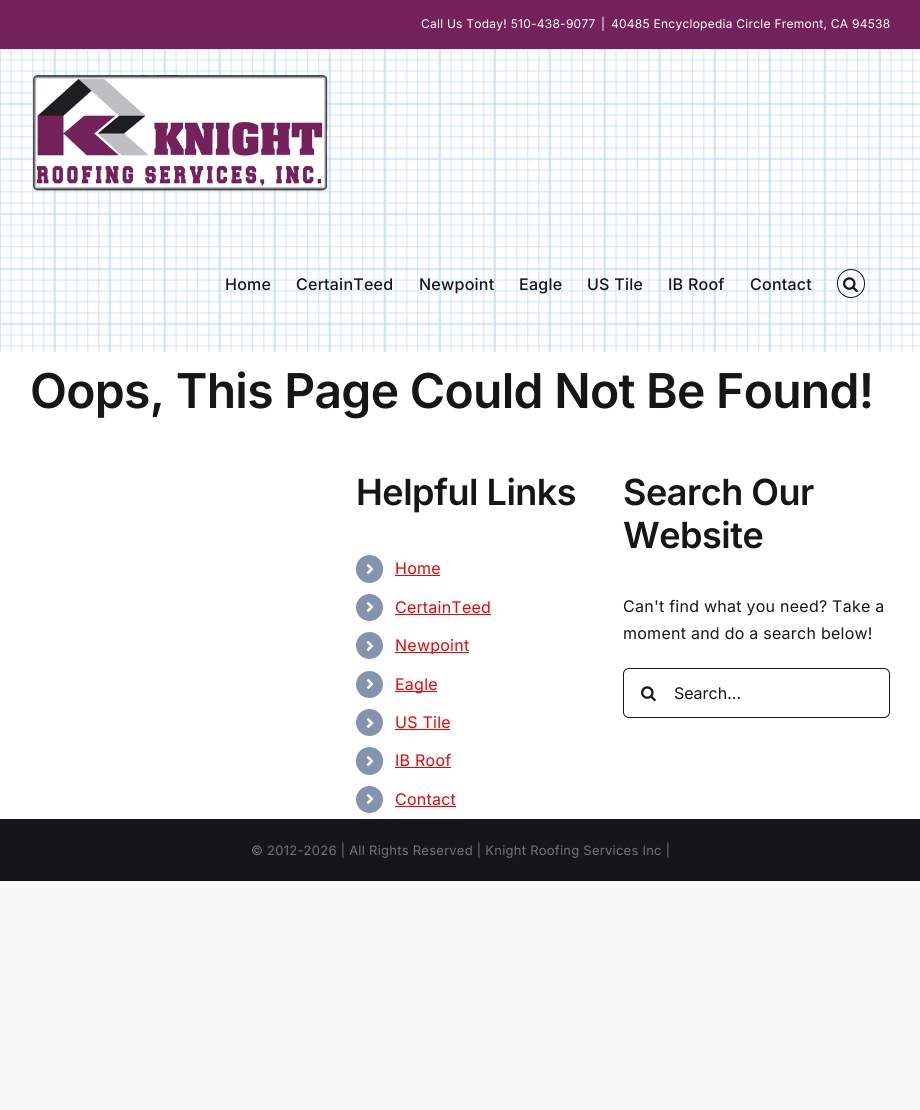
#include <cairo/cairo.h>
#include <math.h>
#include <stddef.h>

typedef struct { double x, y; const char *s; } line_t;
static cairo_t *cr;

static void rgb(unsigned color)
{
	cairo_set_source_rgb(cr, (color >> 16) / 255.0, (color >> 8 & 255) / 255.0, (color & 255) / 255.0);
}

static void tracked(double x, double y, const char *s, double letter, double word)
{
	cairo_move_to(cr, x, y);
	while (*s) {
		char ch[5] = {0};
		int n = 0;
		do ch[n++] = *s++; while ((*s & 0xC0) == 0x80);
		cairo_show_text(cr, ch);
		cairo_rel_move_to(cr, letter + word * (*ch == ' '), 0);
	}
}

static void rrect(double x, double y, double w, double h, double r)
{
	cairo_new_sub_path(cr);
	cairo_arc(cr, x + w - r, y + h - r, r, 0, M_PI / 2);
	cairo_arc(cr, x + r, y + h - r, r, M_PI / 2, M_PI);
	cairo_arc(cr, x + r, y + r, r, M_PI, 1.5 * M_PI);
	cairo_arc(cr, x + w - r, y + r, r, 1.5 * M_PI, 2 * M_PI);
	cairo_close_path(cr);
}

static void image(const char *path, double x, double y, double w, double h)
{
	cairo_surface_t *image = cairo_image_surface_create_from_png(path);
	cairo_save(cr);
	cairo_set_source_surface(cr, image, x, y);
	cairo_rectangle(cr, x, y, w, h);
	cairo_fill(cr);
	cairo_restore(cr);
	cairo_surface_destroy(image);
}

int main(void) {
	cairo_surface_t *surface = cairo_image_surface_create(CAIRO_FORMAT_RGB24, 920, 1110);
	cr = cairo_create(surface);
	cairo_font_options_t *options = cairo_font_options_create();
	cairo_font_options_set_hint_metrics(options, CAIRO_HINT_METRICS_OFF);
	cairo_font_options_set_hint_style(options, CAIRO_HINT_STYLE_NONE);
	cairo_set_font_options(cr, options);
	cairo_set_miter_limit(cr, 4);
	rgb(0xf7f7f7);
	cairo_paint(cr);
	rgb(0xffffff);
	cairo_rectangle(cr, 0, 49, 920, 770);
	cairo_fill(cr);
	rgb(0x75215c);
	cairo_rectangle(cr, 0, 0, 920, 49);
	cairo_fill(cr);
	image("img/1.png", 0, 49, 920, 303);
	image("img/2.png", 33, 75, 295, 116);
	rrect(837.5, 269.5, 27, 28, 13.5);
	rgb(0x141617);
	cairo_set_line_width(cr, 1);
	cairo_stroke(cr);
	image("img/3.png", 843, 277, 15, 16);
	rgb(0x8494ac);
	rrect(356, 555, 27, 28, 13.5);
	cairo_fill(cr);
	image("img/4.png", 366, 564, 8, 10);
	rgb(0xf90000);
	cairo_rectangle(cr, 395, 575, 45, 1);
	cairo_fill(cr);
	rgb(0x8494ac);
	cairo_arc(cr, 369.5, 607.5, 13.5, 0, 2 * M_PI);
	cairo_fill(cr);
	image("img/4.png", 366, 602, 8, 10);
	rgb(0xf90000);
	cairo_rectangle(cr, 395, 614, 96, 1);
	cairo_fill(cr);
	rgb(0x8494ac);
	cairo_arc(cr, 369.5, 645.5, 13.5, 0, 2 * M_PI);
	cairo_fill(cr);
	image("img/4.png", 366, 641, 8, 10);
	rgb(0xf90000);
	cairo_rectangle(cr, 395, 652, 74, 1);
	cairo_fill(cr);
	rgb(0x8494ac);
	cairo_arc(cr, 369.5, 684.5, 13.5, 0, 2 * M_PI);
	cairo_fill(cr);
	image("img/4.png", 366, 679, 8, 10);
	rgb(0xf90000);
	cairo_rectangle(cr, 395, 691, 42, 1);
	cairo_fill(cr);
	rgb(0x8494ac);
	cairo_arc(cr, 369.5, 722.5, 13.5, 0, 2 * M_PI);
	cairo_fill(cr);
	image("img/4.png", 366, 718, 8, 10);
	rgb(0xf90000);
	cairo_rectangle(cr, 395, 729, 55, 1);
	cairo_fill(cr);
	rgb(0x8494ac);
	rrect(356, 747, 27, 28, 13.5);
	cairo_fill(cr);
	image("img/4.png", 366, 756, 8, 10);
	rgb(0xf90000);
	cairo_rectangle(cr, 395, 767, 56, 1);
	cairo_fill(cr);
	rgb(0x8494ac);
	cairo_arc(cr, 369.5, 799.5, 13.5, 0, 2 * M_PI);
	cairo_fill(cr);
	image("img/4.png", 366, 794, 8, 10);
	rgb(0xf90000);
	cairo_rectangle(cr, 395, 806, 61, 1);
	cairo_fill(cr);
	rrect(623.5, 668.5, 266, 49, 5.5);
	rgb(0x141617);
	cairo_stroke(cr);
	image("img/5.png", 641, 686, 15, 16);
	cairo_rectangle(cr, 0, 819, 920, 62);
	cairo_fill(cr);
	cairo_select_font_face(cr, "Inter", CAIRO_FONT_SLANT_NORMAL, CAIRO_FONT_WEIGHT_NORMAL);
	cairo_set_font_size(cr, 12);
	rgb(0xffffff);
	{
		static const line_t items[] = {
			{421, 28, "Call Us Today! 510-438-9077"},
			{601, 28, "|"},
			{611, 28, "40485 Encyclopedia Circle Fremont, CA 94538"},
		};
		for (size_t i = 0; i < sizeof items / sizeof *items; i++) {
			tracked(items[i].x, items[i].y, items[i].s, 0.25, 0);
		}
	}
	cairo_select_font_face(cr, "Inter Medium", CAIRO_FONT_SLANT_NORMAL, CAIRO_FONT_WEIGHT_NORMAL);
	cairo_set_font_size(cr, 16);
	rgb(0x141617);
	{
		static const line_t items[] = {
			{225, 290, "Home"},
			{296, 290, "CertainTeed"},
			{419, 290, "Newpoint"},
			{519, 290, "Eagle"},
			{587, 290, "US Tile"},
			{668, 290, "IB Roof"},
			{750, 290, "Contact"},
		};
		for (size_t i = 0; i < sizeof items / sizeof *items; i++) {
			tracked(items[i].x, items[i].y, items[i].s, 0.25, 0);
		}
	}
	cairo_select_font_face(cr, "Inter SemiBold", CAIRO_FONT_SLANT_NORMAL, CAIRO_FONT_WEIGHT_NORMAL);
	cairo_set_font_size(cr, 48);
	tracked(30, 408, "Oops, This Page Could Not Be Found!", -0.7, 0);
	cairo_set_font_size(cr, 36);
	tracked(356, 505, "Helpful Links", -0.5, 0);
	cairo_select_font_face(cr, "Inter", CAIRO_FONT_SLANT_NORMAL, CAIRO_FONT_WEIGHT_NORMAL);
	cairo_set_font_size(cr, 16);
	rgb(0xf90000);
	{
		static const line_t items[] = {
			{395, 574, "Home"},
			{395, 613, "CertainTeed"},
			{395, 651, "Newpoint"},
			{395, 690, "Eagle"},
			{395, 728, "US Tile"},
			{395, 766, "IB Roof"},
			{395, 805, "Contact"},
		};
		for (size_t i = 0; i < sizeof items / sizeof *items; i++) {
			tracked(items[i].x, items[i].y, items[i].s, 0.25, 0);
		}
	}
	cairo_select_font_face(cr, "Inter SemiBold", CAIRO_FONT_SLANT_NORMAL, CAIRO_FONT_WEIGHT_NORMAL);
	cairo_set_font_size(cr, 36);
	rgb(0x141617);
	tracked(623, 505, "Search Our", -0.5, 0);
	tracked(623, 548, "Website", -0.5, 0);
	cairo_select_font_face(cr, "Inter", CAIRO_FONT_SLANT_NORMAL, CAIRO_FONT_WEIGHT_NORMAL);
	cairo_set_font_size(cr, 16);
	tracked(623, 612, "Can't find what you need? Take a", 0.25, 0);
	tracked(623, 639, "moment and do a search below!", 0.25, 0);
	cairo_move_to(cr, 674, 699);
	cairo_show_text(cr, "Search...");
	cairo_set_font_size(cr, 13);
	rgb(0x727374);
	tracked(251, 855, "© 2012-2026 | All Rights Reserved | Knight Roofing Services Inc |", 0.25, 0);
	cairo_surface_write_to_png(surface, "page.png");
	cairo_font_options_destroy(options);
	cairo_destroy(cr);
	cairo_surface_destroy(surface);
	return 0;
}
